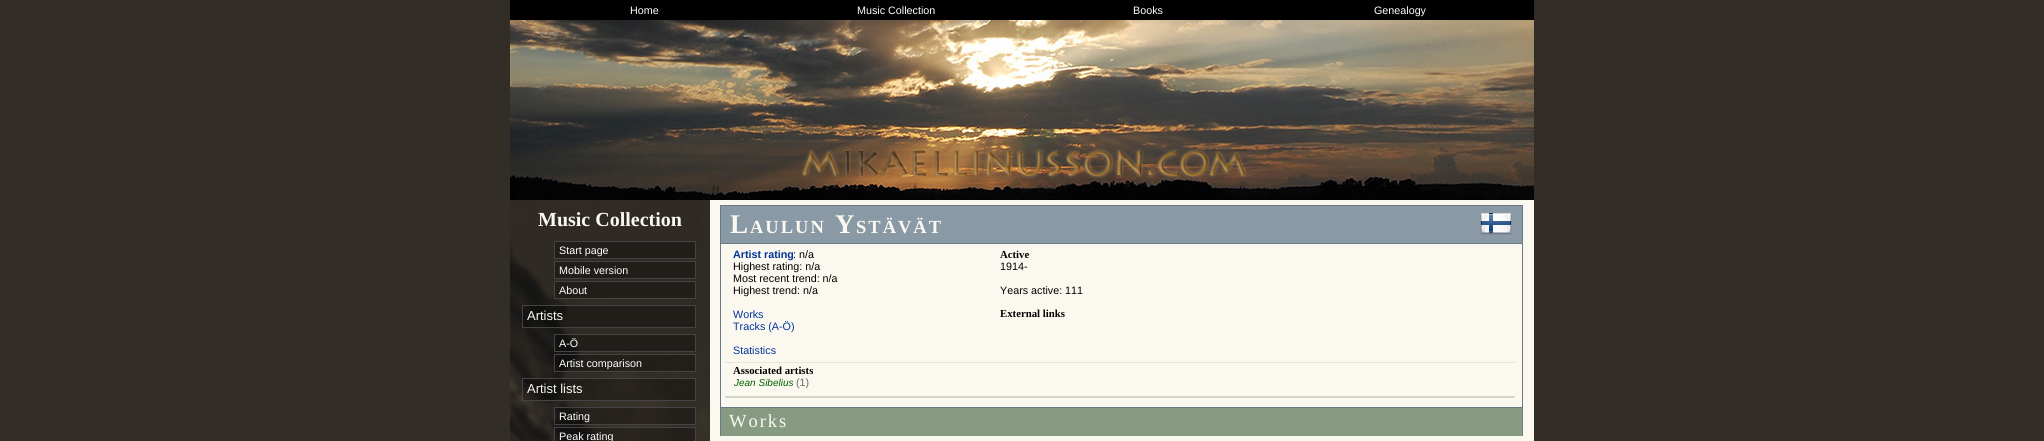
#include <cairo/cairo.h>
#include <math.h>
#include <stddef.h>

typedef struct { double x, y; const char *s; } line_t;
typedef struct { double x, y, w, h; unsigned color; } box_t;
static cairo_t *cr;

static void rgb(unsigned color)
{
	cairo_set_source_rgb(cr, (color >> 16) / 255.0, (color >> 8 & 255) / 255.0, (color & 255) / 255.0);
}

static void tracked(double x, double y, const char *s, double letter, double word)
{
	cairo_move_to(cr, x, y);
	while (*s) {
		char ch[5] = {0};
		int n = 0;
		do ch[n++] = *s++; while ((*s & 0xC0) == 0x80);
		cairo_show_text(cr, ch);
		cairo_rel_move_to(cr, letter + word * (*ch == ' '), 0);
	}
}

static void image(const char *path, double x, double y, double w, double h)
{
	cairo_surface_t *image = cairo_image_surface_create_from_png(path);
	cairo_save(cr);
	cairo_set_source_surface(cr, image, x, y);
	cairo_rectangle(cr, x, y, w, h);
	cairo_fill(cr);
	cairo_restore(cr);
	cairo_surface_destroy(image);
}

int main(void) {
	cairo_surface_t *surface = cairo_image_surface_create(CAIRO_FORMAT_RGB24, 2044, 441);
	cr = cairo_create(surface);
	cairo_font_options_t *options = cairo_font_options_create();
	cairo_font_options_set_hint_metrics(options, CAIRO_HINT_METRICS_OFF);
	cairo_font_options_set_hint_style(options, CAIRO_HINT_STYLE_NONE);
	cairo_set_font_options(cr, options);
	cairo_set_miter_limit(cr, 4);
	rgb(0x332d28);
	cairo_paint(cr);
	rgb(0xfbf9ef);
	cairo_rectangle(cr, 710, 200, 824, 241);
	cairo_fill(cr);
	rgb(0x000000);
	cairo_rectangle(cr, 510, 0, 1024, 20);
	cairo_fill(cr);
	image("img/1.png", 510, 20, 1024, 180);
	image("img/2.png", 510, 200, 200, 241);
	rgb(0x211d19);
	cairo_rectangle(cr, 554.5, 241.5, 141, 17);
	cairo_fill_preserve(cr);
	rgb(0x444444);
	cairo_set_line_width(cr, 1);
	cairo_stroke(cr);
	cairo_set_source_rgba(cr, 0, 0, 0, 0.3);
	cairo_rectangle(cr, 554.5, 261.5, 141, 17);
	cairo_fill_preserve(cr);
	rgb(0x444444);
	cairo_stroke(cr);
	cairo_set_source_rgba(cr, 0, 0, 0, 0.3);
	cairo_rectangle(cr, 554.5, 281.5, 141, 17);
	cairo_fill_preserve(cr);
	rgb(0x444444);
	cairo_stroke(cr);
	cairo_set_source_rgba(cr, 0, 0, 0, 0.3);
	cairo_rectangle(cr, 522.5, 305.5, 173, 22);
	cairo_fill_preserve(cr);
	rgb(0x444444);
	cairo_stroke(cr);
	cairo_set_source_rgba(cr, 0, 0, 0, 0.3);
	cairo_rectangle(cr, 554.5, 334.5, 141, 17);
	cairo_fill_preserve(cr);
	rgb(0x444444);
	cairo_stroke(cr);
	cairo_set_source_rgba(cr, 0, 0, 0, 0.3);
	cairo_rectangle(cr, 554.5, 354.5, 141, 17);
	cairo_fill_preserve(cr);
	rgb(0x444444);
	cairo_stroke(cr);
	cairo_set_source_rgba(cr, 0, 0, 0, 0.3);
	cairo_rectangle(cr, 522.5, 378.5, 173, 22);
	cairo_fill_preserve(cr);
	rgb(0x444444);
	cairo_stroke(cr);
	cairo_set_source_rgba(cr, 0, 0, 0, 0.3);
	cairo_rectangle(cr, 554.5, 407.5, 141, 17);
	cairo_fill_preserve(cr);
	rgb(0x444444);
	cairo_stroke(cr);
	cairo_set_source_rgba(cr, 0, 0, 0, 0.3);
	cairo_rectangle(cr, 554.5, 427.5, 141, 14);
	cairo_fill_preserve(cr);
	rgb(0x444444);
	cairo_stroke(cr);
	{
		static const box_t items[] = {
			{721, 206, 801, 37, 0x8999a6},
			{720, 205, 803, 1, 0x697986},
			{1522, 243, 1, 165, 0x697986},
			{1522, 205, 1, 39, 0x697986},
			{720, 243, 1, 165, 0x697986},
			{720, 243, 803, 1, 0x697986},
			{720, 205, 1, 39, 0x697986},
		};
		for (size_t i = 0; i < sizeof items / sizeof *items; i++) {
			rgb(items[i].color);
			cairo_rectangle(cr, items[i].x, items[i].y, items[i].w, items[i].h);
			cairo_fill(cr);
		}
	}
	image("img/3.png", 1480, 213, 32, 22);
	{
		static const box_t items[] = {
			{725, 396, 790, 2, 0xd4d6cc},
			{725, 362, 791, 1, 0xe4e6dc},
			{721, 408, 801, 28, 0x879b82},
			{720, 407, 803, 1, 0x697986},
			{1522, 407, 1, 29, 0x697986},
			{720, 407, 1, 29, 0x697986},
		};
		for (size_t i = 0; i < sizeof items / sizeof *items; i++) {
			rgb(items[i].color);
			cairo_rectangle(cr, items[i].x, items[i].y, items[i].w, items[i].h);
			cairo_fill(cr);
		}
	}
	cairo_select_font_face(cr, "Liberation Sans", CAIRO_FONT_SLANT_NORMAL, CAIRO_FONT_WEIGHT_NORMAL);
	cairo_set_font_size(cr, 10.75);
	rgb(0xffffff);
	{
		static const line_t items[] = {
			{630, 14, "Home"},
			{857, 14, "Music Collection"},
			{1133, 14, "Books"},
			{1374, 14, "Genealogy"},
		};
		for (size_t i = 0; i < sizeof items / sizeof *items; i++) {
			cairo_move_to(cr, items[i].x, items[i].y);
			cairo_show_text(cr, items[i].s);
		}
	}
	cairo_select_font_face(cr, "Liberation Serif", CAIRO_FONT_SLANT_NORMAL, CAIRO_FONT_WEIGHT_BOLD);
	cairo_set_font_size(cr, 20);
	rgb(0xfbf9ef);
	cairo_move_to(cr, 538, 226);
	cairo_show_text(cr, "Music Collection");
	cairo_select_font_face(cr, "Liberation Sans", CAIRO_FONT_SLANT_NORMAL, CAIRO_FONT_WEIGHT_NORMAL);
	cairo_set_font_size(cr, 10.75);
	rgb(0xffffff);
	{
		static const line_t items[] = {
			{559, 254, "Start page"},
			{559, 274, "Mobile version"},
			{559, 294, "About"},
		};
		for (size_t i = 0; i < sizeof items / sizeof *items; i++) {
			cairo_move_to(cr, items[i].x, items[i].y);
			cairo_show_text(cr, items[i].s);
		}
	}
	cairo_set_font_size(cr, 13);
	rgb(0xfbf9ef);
	cairo_move_to(cr, 527, 320);
	cairo_show_text(cr, "Artists");
	cairo_set_font_size(cr, 10.75);
	rgb(0xffffff);
	cairo_move_to(cr, 559, 347);
	cairo_show_text(cr, "A-Ö");
	cairo_move_to(cr, 559, 367);
	cairo_show_text(cr, "Artist comparison");
	cairo_set_font_size(cr, 13);
	rgb(0xfbf9ef);
	cairo_move_to(cr, 527, 393);
	cairo_show_text(cr, "Artist lists");
	cairo_set_font_size(cr, 10.75);
	rgb(0xffffff);
	cairo_move_to(cr, 559, 420);
	cairo_show_text(cr, "Rating");
	cairo_move_to(cr, 559, 440);
	cairo_show_text(cr, "Peak rating");
	cairo_select_font_face(cr, "Liberation Serif", CAIRO_FONT_SLANT_NORMAL, CAIRO_FONT_WEIGHT_BOLD);
	cairo_set_font_size(cr, 27);
	rgb(0xfbf9ef);
	tracked(730, 233, "L", 2, 0);
	cairo_set_font_size(cr, 18.5);
	tracked(750, 233, "AULUN", 2, 0);
	cairo_set_font_size(cr, 27);
	tracked(835, 233, "Y", 2, 0);
	cairo_set_font_size(cr, 18.5);
	tracked(856, 233, "STÄVÄT", 2, 0);
	cairo_select_font_face(cr, "Liberation Sans", CAIRO_FONT_SLANT_NORMAL, CAIRO_FONT_WEIGHT_BOLD);
	cairo_set_font_size(cr, 10.75);
	rgb(0x003399);
	cairo_move_to(cr, 733, 258);
	cairo_show_text(cr, "Artist rating");
	cairo_select_font_face(cr, "Liberation Sans", CAIRO_FONT_SLANT_NORMAL, CAIRO_FONT_WEIGHT_NORMAL);
	rgb(0x000000);
	{
		static const line_t items[] = {
			{793, 258, ": n/a"},
			{733, 270, "Highest rating: n/a"},
			{733, 282, "Most recent trend: n/a"},
			{733, 294, "Highest trend: n/a"},
		};
		for (size_t i = 0; i < sizeof items / sizeof *items; i++) {
			cairo_move_to(cr, items[i].x, items[i].y);
			cairo_show_text(cr, items[i].s);
		}
	}
	rgb(0x003399);
	{
		static const line_t items[] = {
			{733, 318, "Works"},
			{733, 330, "Tracks (A-Ö)"},
			{733, 354, "Statistics"},
		};
		for (size_t i = 0; i < sizeof items / sizeof *items; i++) {
			cairo_move_to(cr, items[i].x, items[i].y);
			cairo_show_text(cr, items[i].s);
		}
	}
	cairo_select_font_face(cr, "Liberation Serif", CAIRO_FONT_SLANT_NORMAL, CAIRO_FONT_WEIGHT_BOLD);
	rgb(0x000000);
	cairo_move_to(cr, 1000, 258);
	cairo_show_text(cr, "Active");
	cairo_select_font_face(cr, "Liberation Sans", CAIRO_FONT_SLANT_NORMAL, CAIRO_FONT_WEIGHT_NORMAL);
	cairo_move_to(cr, 1000, 270);
	cairo_show_text(cr, "1914-");
	cairo_move_to(cr, 1000, 294);
	cairo_show_text(cr, "Years active: 111");
	cairo_select_font_face(cr, "Liberation Serif", CAIRO_FONT_SLANT_NORMAL, CAIRO_FONT_WEIGHT_BOLD);
	cairo_move_to(cr, 1000, 317);
	cairo_show_text(cr, "External links");
	cairo_move_to(cr, 733, 374);
	cairo_show_text(cr, "Associated artists");
	cairo_select_font_face(cr, "Liberation Sans", CAIRO_FONT_SLANT_ITALIC, CAIRO_FONT_WEIGHT_NORMAL);
	cairo_set_font_size(cr, 10);
	rgb(0x006000);
	cairo_move_to(cr, 734, 386);
	cairo_show_text(cr, "Jean Sibelius");
	cairo_select_font_face(cr, "Liberation Sans", CAIRO_FONT_SLANT_NORMAL, CAIRO_FONT_WEIGHT_NORMAL);
	cairo_set_font_size(cr, 10.75);
	rgb(0x666666);
	cairo_move_to(cr, 796, 386);
	cairo_show_text(cr, "(1)");
	cairo_select_font_face(cr, "Liberation Serif", CAIRO_FONT_SLANT_NORMAL, CAIRO_FONT_WEIGHT_NORMAL);
	cairo_set_font_size(cr, 18.5);
	rgb(0xfbf9ef);
	tracked(729, 427, "Works", 2, 0);
	cairo_surface_write_to_png(surface, "page.png");
	cairo_font_options_destroy(options);
	cairo_destroy(cr);
	cairo_surface_destroy(surface);
	return 0;
}
